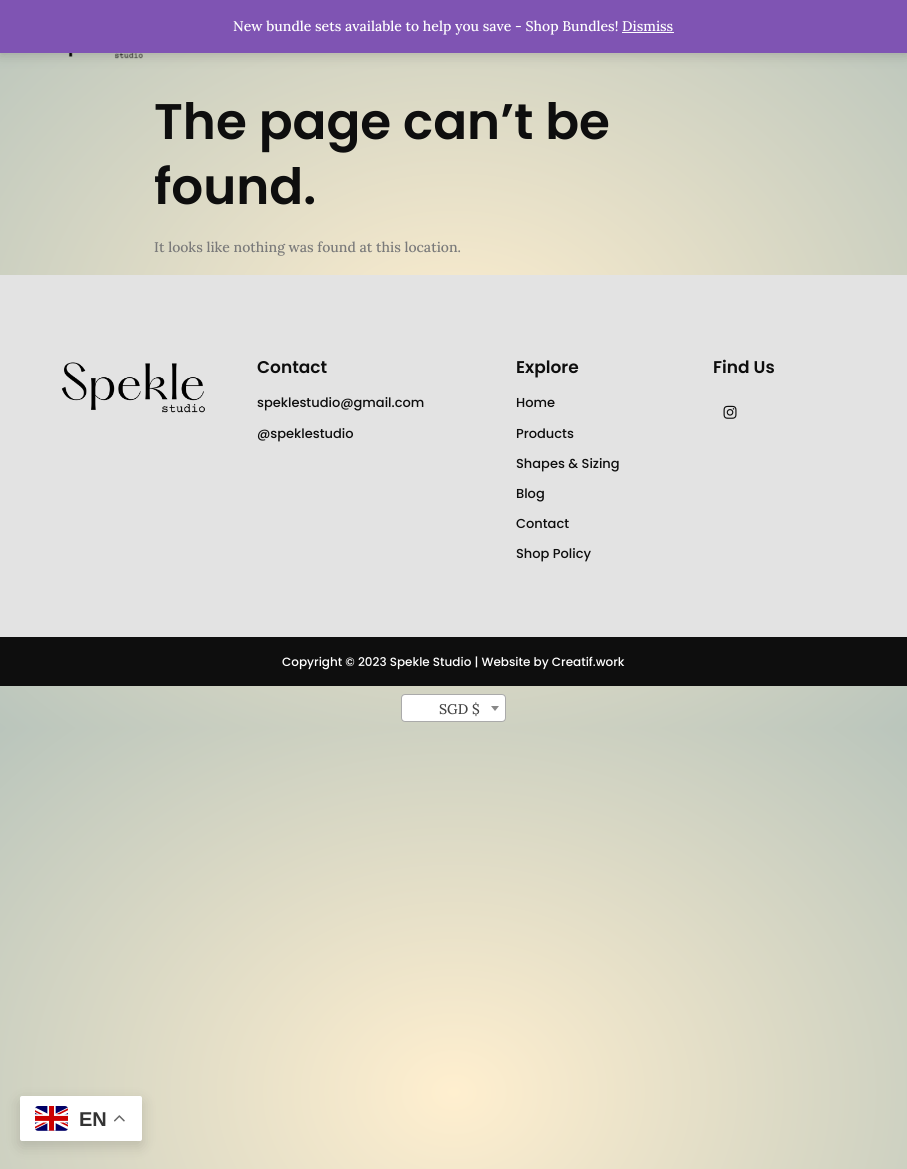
#include <cairo/cairo.h>
#include <math.h>
#include <stddef.h>

typedef struct { double x, y; const char *s; } line_t;
typedef struct { double x, y, w, h; unsigned color; } box_t;
static cairo_t *cr;

static void rgb(unsigned color)
{
	cairo_set_source_rgb(cr, (color >> 16) / 255.0, (color >> 8 & 255) / 255.0, (color & 255) / 255.0);
}

static void rrect(double x, double y, double w, double h, double r)
{
	cairo_new_sub_path(cr);
	cairo_arc(cr, x + w - r, y + h - r, r, 0, M_PI / 2);
	cairo_arc(cr, x + r, y + h - r, r, M_PI / 2, M_PI);
	cairo_arc(cr, x + r, y + r, r, M_PI, 1.5 * M_PI);
	cairo_arc(cr, x + w - r, y + r, r, 1.5 * M_PI, 2 * M_PI);
	cairo_close_path(cr);
}

static void soft_shadow(double x, double y, double w, double h, double r, double blur, double alpha)
{
	cairo_push_group_with_content(cr, CAIRO_CONTENT_ALPHA);
	cairo_set_operator(cr, CAIRO_OPERATOR_SOURCE);
	for (int i = 15; i >= -15 && fmin(w, h) + blur * i / 3 > 0; i -= 2) {
		double e = blur * i / 6;
		cairo_set_source_rgba(cr, 0, 0, 0, alpha * erfc((i - 1) / 8.5) / 2);
		rrect(x - e, y - e, w + 2 * e, h + 2 * e, fmax(0, fmin(r + e + blur * .6, fmin(w, h) / 2 + e)));
		cairo_fill(cr);
	}
	cairo_pattern_t *soft = cairo_pop_group(cr);
	cairo_mask(cr, soft);
	cairo_pattern_destroy(soft);
}

static void image(const char *path, double x, double y, double w, double h)
{
	cairo_surface_t *image = cairo_image_surface_create_from_png(path);
	cairo_save(cr);
	cairo_set_source_surface(cr, image, x, y);
	cairo_rectangle(cr, x, y, w, h);
	cairo_fill(cr);
	cairo_restore(cr);
	cairo_surface_destroy(image);
}

int main(void) {
	cairo_surface_t *surface = cairo_image_surface_create(CAIRO_FORMAT_RGB24, 907, 1169);
	cr = cairo_create(surface);
	cairo_font_options_t *options = cairo_font_options_create();
	cairo_font_options_set_hint_metrics(options, CAIRO_HINT_METRICS_OFF);
	cairo_font_options_set_hint_style(options, CAIRO_HINT_STYLE_NONE);
	cairo_set_font_options(cr, options);
	cairo_set_miter_limit(cr, 4);
	cairo_pattern_t *gradient;
	rgb(0xffffff);
	cairo_paint(cr);
	gradient = cairo_pattern_create_radial(0, 0, 0, 0, 0, 1);
	cairo_pattern_set_matrix(gradient, &(cairo_matrix_t){1.0 / 641, 0, 0, 1.0 / 515, -1.0 * 454 / 641, -1.0 * 364 / 515});
	cairo_pattern_add_color_stop_rgba(gradient, 0, 1, 0.937, 0.812, 1);
	cairo_pattern_add_color_stop_rgba(gradient, 1, 0.729, 0.773, 0.737, 1);
	cairo_set_source(cr, gradient);
	cairo_pattern_destroy(gradient);
	cairo_rectangle(cr, 0, 53, 907, 675);
	cairo_fill(cr);
	gradient = cairo_pattern_create_radial(0, 0, 0, 0, 0, 1);
	cairo_pattern_set_matrix(gradient, &(cairo_matrix_t){1.0 / 641, 0, 0, 1.0 / 515, -1.0 * 454 / 641, -1.0 * 1092 / 515});
	cairo_pattern_add_color_stop_rgba(gradient, 0, 1, 0.937, 0.812, 1);
	cairo_pattern_add_color_stop_rgba(gradient, 1, 0.729, 0.773, 0.737, 1);
	cairo_set_source(cr, gradient);
	cairo_pattern_destroy(gradient);
	cairo_rectangle(cr, 0, 728, 907, 441);
	cairo_fill(cr);
	image("img/1.png", 68, 53, 75, 6);
	rgb(0x000000);
	soft_shadow(0, 1, 907, 53, 0, 7, 0.2);
	{
		static const box_t items[] = {
			{0, 0, 907, 53, 0x7f54b3},
			{622, 32, 52, 1, 0xffffff},
			{0, 275, 907, 362, 0xe3e3e3},
		};
		for (size_t i = 0; i < sizeof items / sizeof *items; i++) {
			rgb(items[i].color);
			cairo_rectangle(cr, items[i].x, items[i].y, items[i].w, items[i].h);
			cairo_fill(cr);
		}
	}
	image("img/2.png", 61, 362, 144, 51);
	image("img/3.png", 723, 405, 14, 14);
	rgb(0x0e0e0e);
	cairo_rectangle(cr, 0, 637, 907, 49);
	cairo_fill(cr);
	rgb(0xffffff);
	rrect(401.5, 694.5, 104, 27, 3.5);
	cairo_fill_preserve(cr);
	rgb(0xaaaaaa);
	cairo_set_line_width(cr, 1);
	cairo_stroke(cr);
	rgb(0x888888);
	cairo_new_path(cr);
	cairo_move_to(cr, 491, 706);
	cairo_line_to(cr, 499, 706);
	cairo_line_to(cr, 495, 711);
	cairo_close_path(cr);
	cairo_fill(cr);
	rgb(0x000000);
	soft_shadow(20, 1101, 122, 45, 2, 7.5, 0.15);
	rgb(0xffffff);
	rrect(20, 1096, 122, 45, 2);
	cairo_fill(cr);
	image("img/4.png", 35, 1106, 33, 25);
	image("img/5.png", 114, 1115, 11, 7);
	cairo_select_font_face(cr, "Lora Medium", CAIRO_FONT_SLANT_NORMAL, CAIRO_FONT_WEIGHT_NORMAL);
	cairo_set_font_size(cr, 14);
	cairo_move_to(cr, 233, 31);
	cairo_show_text(cr, "New bundle sets available to help you save - Shop Bundles! Dismiss");
	cairo_select_font_face(cr, "Poppins SemiBold", CAIRO_FONT_SLANT_NORMAL, CAIRO_FONT_WEIGHT_NORMAL);
	cairo_set_font_size(cr, 50);
	rgb(0x0e0e0e);
	cairo_move_to(cr, 154, 139);
	cairo_show_text(cr, "The page can’t be");
	cairo_move_to(cr, 154, 204);
	cairo_show_text(cr, "found.");
	cairo_select_font_face(cr, "Lora Medium", CAIRO_FONT_SLANT_NORMAL, CAIRO_FONT_WEIGHT_NORMAL);
	cairo_set_font_size(cr, 14);
	rgb(0x7a7a7a);
	cairo_move_to(cr, 154, 252);
	cairo_show_text(cr, "It looks like nothing was found at this location.");
	cairo_select_font_face(cr, "Poppins SemiBold", CAIRO_FONT_SLANT_NORMAL, CAIRO_FONT_WEIGHT_NORMAL);
	cairo_set_font_size(cr, 17);
	rgb(0x0e0e0e);
	cairo_move_to(cr, 257, 373);
	cairo_show_text(cr, "Contact");
	cairo_select_font_face(cr, "Poppins Medium", CAIRO_FONT_SLANT_NORMAL, CAIRO_FONT_WEIGHT_NORMAL);
	cairo_set_font_size(cr, 13);
	cairo_move_to(cr, 257, 407);
	cairo_show_text(cr, "speklestudio@gmail.com");
	cairo_move_to(cr, 257, 438);
	cairo_show_text(cr, "@speklestudio");
	cairo_select_font_face(cr, "Poppins SemiBold", CAIRO_FONT_SLANT_NORMAL, CAIRO_FONT_WEIGHT_NORMAL);
	cairo_set_font_size(cr, 17);
	cairo_move_to(cr, 516, 373);
	cairo_show_text(cr, "Explore");
	cairo_select_font_face(cr, "Poppins Medium", CAIRO_FONT_SLANT_NORMAL, CAIRO_FONT_WEIGHT_NORMAL);
	cairo_set_font_size(cr, 13);
	{
		static const line_t items[] = {
			{516, 407, "Home"},
			{516, 438, "Products"},
			{516, 468, "Shapes & Sizing"},
			{516, 498, "Blog"},
			{516, 528, "Contact"},
			{516, 558, "Shop Policy"},
		};
		for (size_t i = 0; i < sizeof items / sizeof *items; i++) {
			cairo_move_to(cr, items[i].x, items[i].y);
			cairo_show_text(cr, items[i].s);
		}
	}
	cairo_select_font_face(cr, "Poppins SemiBold", CAIRO_FONT_SLANT_NORMAL, CAIRO_FONT_WEIGHT_NORMAL);
	cairo_set_font_size(cr, 17);
	cairo_move_to(cr, 713, 373);
	cairo_show_text(cr, "Find Us");
	cairo_select_font_face(cr, "Poppins Medium", CAIRO_FONT_SLANT_NORMAL, CAIRO_FONT_WEIGHT_NORMAL);
	cairo_set_font_size(cr, 12);
	rgb(0xffffff);
	cairo_move_to(cr, 282, 666);
	cairo_show_text(cr, "Copyright © 2023 Spekle Studio | Website by Creatif.work");
	cairo_select_font_face(cr, "Lora Medium", CAIRO_FONT_SLANT_NORMAL, CAIRO_FONT_WEIGHT_NORMAL);
	cairo_set_font_size(cr, 14);
	rgb(0x444444);
	cairo_move_to(cr, 439, 714);
	cairo_show_text(cr, "SGD $");
	cairo_select_font_face(cr, "Liberation Sans", CAIRO_FONT_SLANT_NORMAL, CAIRO_FONT_WEIGHT_BOLD);
	cairo_set_font_size(cr, 20);
	rgb(0x333333);
	cairo_move_to(cr, 79, 1126);
	cairo_show_text(cr, "EN");
	cairo_surface_write_to_png(surface, "page.png");
	cairo_font_options_destroy(options);
	cairo_destroy(cr);
	cairo_surface_destroy(surface);
	return 0;
}
